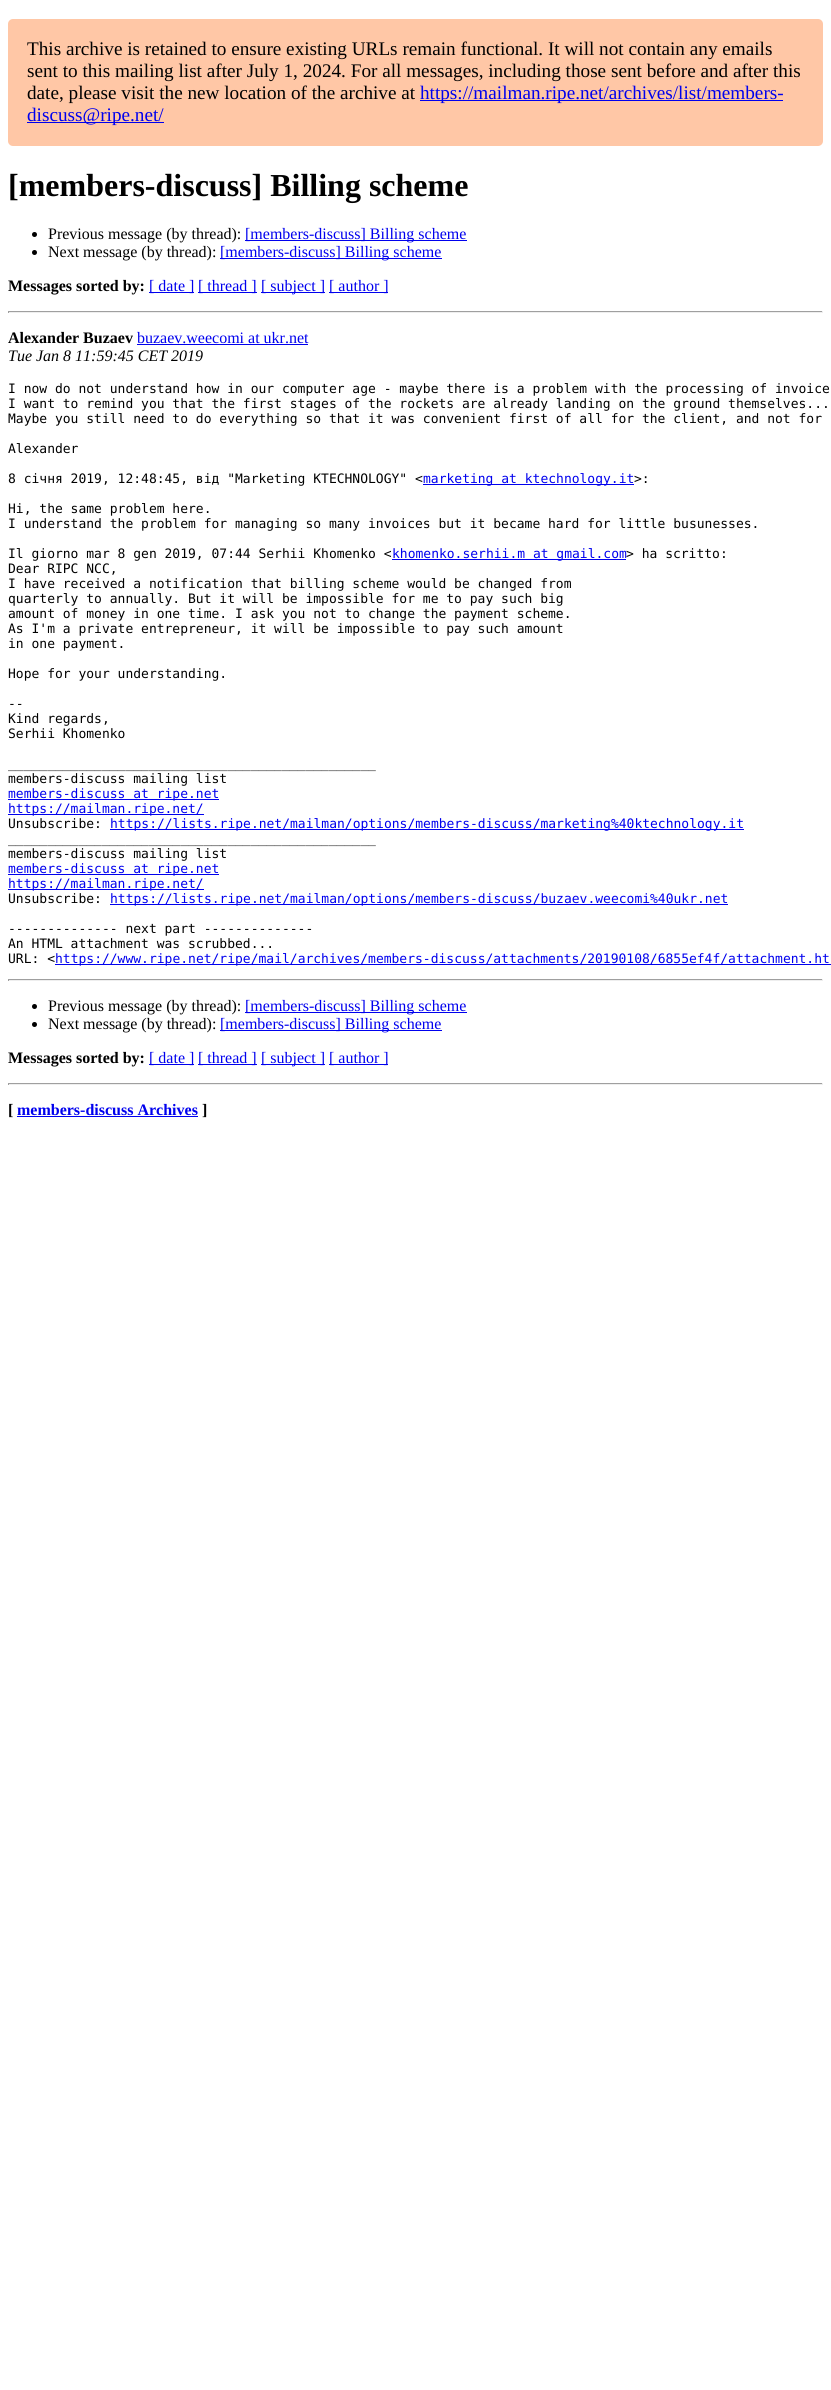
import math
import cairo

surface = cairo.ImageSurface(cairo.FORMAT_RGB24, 831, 2390)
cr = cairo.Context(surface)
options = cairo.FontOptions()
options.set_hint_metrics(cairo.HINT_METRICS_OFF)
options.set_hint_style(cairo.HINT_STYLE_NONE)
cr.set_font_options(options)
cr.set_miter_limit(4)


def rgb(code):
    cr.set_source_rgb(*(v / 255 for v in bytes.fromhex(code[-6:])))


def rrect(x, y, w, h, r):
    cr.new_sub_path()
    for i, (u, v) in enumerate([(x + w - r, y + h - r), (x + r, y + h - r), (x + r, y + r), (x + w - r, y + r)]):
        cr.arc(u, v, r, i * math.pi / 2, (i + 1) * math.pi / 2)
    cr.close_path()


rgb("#ffffff")
cr.paint()
rgb("#ffc7a6")
rrect(8, 19, 815, 127, 5)
cr.fill()
rgb("#0000ee")
cr.rectangle(420, 100, 363, 1)
cr.fill()
cr.rectangle(27, 122, 137, 1)
cr.fill()
rgb("#000000")
cr.arc(34.5, 234.5, 2.5, 0, 2 * math.pi)
cr.fill()
rgb("#0000ee")
cr.rectangle(245, 240, 222, 1)
cr.fill()
rgb("#000000")
cr.arc(34.5, 252.5, 2.5, 0, 2 * math.pi)
cr.fill()
for x, y, w, h, color in [
    (220, 258, 222, 1, "#0000ee"),
    (149, 292, 45, 1, "#0000ee"),
    (198, 292, 59, 1, "#0000ee"),
    (261, 292, 64, 1, "#0000ee"),
    (329, 292, 59, 1, "#0000ee"),
    (8, 311, 815, 1, "#9f9f9f"),
    (822, 311, 1, 2, "#eeeeee"),
    (8, 312, 815, 1, "#eeeeee"),
    (8, 311, 1, 2, "#9f9f9f"),
    (137, 344, 171, 1, "#0000ee"),
    (423, 484, 211, 1, "#0000ee"),
    (392, 559, 234, 1, "#0000ee"),
    (8, 799, 211, 1, "#0000ee"),
    (8, 814, 196, 1, "#0000ee"),
    (110, 829, 634, 1, "#0000ee"),
    (8, 874, 211, 1, "#0000ee"),
    (8, 889, 196, 1, "#0000ee"),
    (110, 904, 618, 1, "#0000ee"),
    (55, 964, 776, 1, "#0000ee"),
    (8, 979, 815, 1, "#9f9f9f"),
    (822, 979, 1, 2, "#eeeeee"),
    (8, 980, 815, 1, "#eeeeee"),
    (8, 979, 1, 2, "#9f9f9f"),
]:
    rgb(color)
    cr.rectangle(x, y, w, h)
    cr.fill()
rgb("#000000")
cr.arc(34.5, 1006.5, 2.5, 0, 2 * math.pi)
cr.fill()
rgb("#0000ee")
cr.rectangle(245, 1012, 222, 1)
cr.fill()
rgb("#000000")
cr.arc(34.5, 1024.5, 2.5, 0, 2 * math.pi)
cr.fill()
for x, y, w, h, color in [
    (220, 1030, 222, 1, "#0000ee"),
    (149, 1064, 45, 1, "#0000ee"),
    (198, 1064, 59, 1, "#0000ee"),
    (261, 1064, 64, 1, "#0000ee"),
    (329, 1064, 59, 1, "#0000ee"),
    (8, 1083, 815, 1, "#9f9f9f"),
    (822, 1083, 1, 2, "#eeeeee"),
    (8, 1084, 815, 1, "#eeeeee"),
    (8, 1083, 1, 2, "#9f9f9f"),
    (17, 1116, 181, 1, "#0000ee"),
]:
    rgb(color)
    cr.rectangle(x, y, w, h)
    cr.fill()
cr.select_font_face("Liberation Serif")
cr.set_font_size(19.2)
rgb("#000000")
for x, y, s in [
    (27, 55, "This archive is retained to ensure existing URLs remain functional. It will not contain any emails"),
    (27, 77, "sent to this mailing list after July 1, 2024. For all messages, including those sent before and after this"),
    (27, 99, "date, please visit the new location of the archive at"),
]:
    cr.move_to(x, y)
    cr.show_text(s)
rgb("#0000ee")
cr.move_to(420, 99)
cr.show_text("https://mailman.ripe.net/archives/list/members-")
cr.move_to(27, 121)
cr.show_text("discuss@ripe.net/")
cr.select_font_face("Liberation Serif", cairo.FONT_SLANT_NORMAL, cairo.FONT_WEIGHT_BOLD)
cr.set_font_size(32)
rgb("#000000")
cr.move_to(8, 196)
cr.show_text("[members-discuss] Billing scheme")
cr.select_font_face("Liberation Serif")
cr.set_font_size(16)
cr.move_to(48, 239)
cr.show_text("Previous message (by thread):")
rgb("#0000ee")
cr.move_to(245, 239)
cr.show_text("[members-discuss] Billing scheme")
rgb("#000000")
cr.move_to(48, 257)
cr.show_text("Next message (by thread):")
rgb("#0000ee")
cr.move_to(220, 257)
cr.show_text("[members-discuss] Billing scheme")
cr.select_font_face("Liberation Serif", cairo.FONT_SLANT_NORMAL, cairo.FONT_WEIGHT_BOLD)
rgb("#000000")
cr.move_to(8, 291)
cr.show_text("Messages sorted by:")
cr.select_font_face("Liberation Serif")
rgb("#0000ee")
for x, y, s in [
    (149, 291, "[ date ]"),
    (198, 291, "[ thread ]"),
    (261, 291, "[ subject ]"),
    (329, 291, "[ author ]"),
]:
    cr.move_to(x, y)
    cr.show_text(s)
cr.select_font_face("Liberation Serif", cairo.FONT_SLANT_NORMAL, cairo.FONT_WEIGHT_BOLD)
rgb("#000000")
cr.move_to(8, 343)
cr.show_text("Alexander Buzaev")
cr.select_font_face("Liberation Serif")
rgb("#0000ee")
cr.move_to(137, 343)
cr.show_text("buzaev.weecomi at ukr.net")
cr.select_font_face("Liberation Serif", cairo.FONT_SLANT_ITALIC)
rgb("#000000")
cr.move_to(8, 361)
cr.show_text("Tue Jan 8 11:59:45 CET 2019")
cr.select_font_face("DejaVu Sans Mono")
cr.set_font_size(13)
for x, y, s in [
    (8, 393, "I now do not understand how in our computer age - maybe there is a problem with the processing of invoice"),
    (8, 408, "I want to remind you that the first stages of the rockets are already landing on the ground themselves..."),
    (8, 423, "Maybe you still need to do everything so that it was convenient first of all for the client, and not for"),
    (8, 453, "Alexander"),
    (8, 483, "8 січня 2019, 12:48:45, від \"Marketing KTECHNOLOGY\" <"),
]:
    cr.move_to(x, y)
    cr.show_text(s)
rgb("#0000ee")
cr.move_to(423, 483)
cr.show_text("marketing at ktechnology.it")
rgb("#000000")
for x, y, s in [
    (634, 483, ">:"),
    (8, 513, "Hi, the same problem here."),
    (8, 528, "I understand the problem for managing so many invoices but it became hard for little busunesses."),
    (8, 558, "Il giorno mar 8 gen 2019, 07:44 Serhii Khomenko <"),
]:
    cr.move_to(x, y)
    cr.show_text(s)
rgb("#0000ee")
cr.move_to(392, 558)
cr.show_text("khomenko.serhii.m at gmail.com")
rgb("#000000")
for x, y, s in [
    (626, 558, "> ha scritto:"),
    (8, 573, "Dear RIPC NCC,"),
    (8, 588, "I have received a notification that billing scheme would be changed from"),
    (8, 603, "quarterly to annually. But it will be impossible for me to pay such big"),
    (8, 618, "amount of money in one time. I ask you not to change the payment scheme."),
    (8, 633, "As I'm a private entrepreneur, it will be impossible to pay such amount"),
    (8, 648, "in one payment."),
    (8, 678, "Hope for your understanding."),
    (8, 708, "--"),
    (8, 723, "Kind regards,"),
    (8, 738, "Serhii Khomenko"),
    (8, 768, "_______________________________________________"),
    (8, 783, "members-discuss mailing list"),
]:
    cr.move_to(x, y)
    cr.show_text(s)
rgb("#0000ee")
cr.move_to(8, 798)
cr.show_text("members-discuss at ripe.net")
cr.move_to(8, 813)
cr.show_text("https://mailman.ripe.net/")
rgb("#000000")
cr.move_to(8, 828)
cr.show_text("Unsubscribe:")
rgb("#0000ee")
cr.move_to(110, 828)
cr.show_text("https://lists.ripe.net/mailman/options/members-discuss/marketing%40ktechnology.it")
rgb("#000000")
cr.move_to(8, 843)
cr.show_text("_______________________________________________")
cr.move_to(8, 858)
cr.show_text("members-discuss mailing list")
rgb("#0000ee")
cr.move_to(8, 873)
cr.show_text("members-discuss at ripe.net")
cr.move_to(8, 888)
cr.show_text("https://mailman.ripe.net/")
rgb("#000000")
cr.move_to(8, 903)
cr.show_text("Unsubscribe:")
rgb("#0000ee")
cr.move_to(110, 903)
cr.show_text("https://lists.ripe.net/mailman/options/members-discuss/buzaev.weecomi%40ukr.net")
rgb("#000000")
for x, y, s in [
    (8, 933, "-------------- next part --------------"),
    (8, 948, "An HTML attachment was scrubbed..."),
    (8, 963, "URL: <"),
]:
    cr.move_to(x, y)
    cr.show_text(s)
rgb("#0000ee")
cr.move_to(55, 963)
cr.show_text("https://www.ripe.net/ripe/mail/archives/members-discuss/attachments/20190108/6855ef4f/attachment.ht")
cr.select_font_face("Liberation Serif")
cr.set_font_size(16)
rgb("#000000")
cr.move_to(48, 1011)
cr.show_text("Previous message (by thread):")
rgb("#0000ee")
cr.move_to(245, 1011)
cr.show_text("[members-discuss] Billing scheme")
rgb("#000000")
cr.move_to(48, 1029)
cr.show_text("Next message (by thread):")
rgb("#0000ee")
cr.move_to(220, 1029)
cr.show_text("[members-discuss] Billing scheme")
cr.select_font_face("Liberation Serif", cairo.FONT_SLANT_NORMAL, cairo.FONT_WEIGHT_BOLD)
rgb("#000000")
cr.move_to(8, 1063)
cr.show_text("Messages sorted by:")
cr.select_font_face("Liberation Serif")
rgb("#0000ee")
for x, y, s in [
    (149, 1063, "[ date ]"),
    (198, 1063, "[ thread ]"),
    (261, 1063, "[ subject ]"),
    (329, 1063, "[ author ]"),
]:
    cr.move_to(x, y)
    cr.show_text(s)
cr.select_font_face("Liberation Serif", cairo.FONT_SLANT_NORMAL, cairo.FONT_WEIGHT_BOLD)
rgb("#000000")
cr.move_to(8, 1115)
cr.show_text("[")
rgb("#0000ee")
cr.move_to(17, 1115)
cr.show_text("members-discuss Archives")
rgb("#000000")
cr.move_to(202, 1115)
cr.show_text("]")
surface.write_to_png("page.png")
